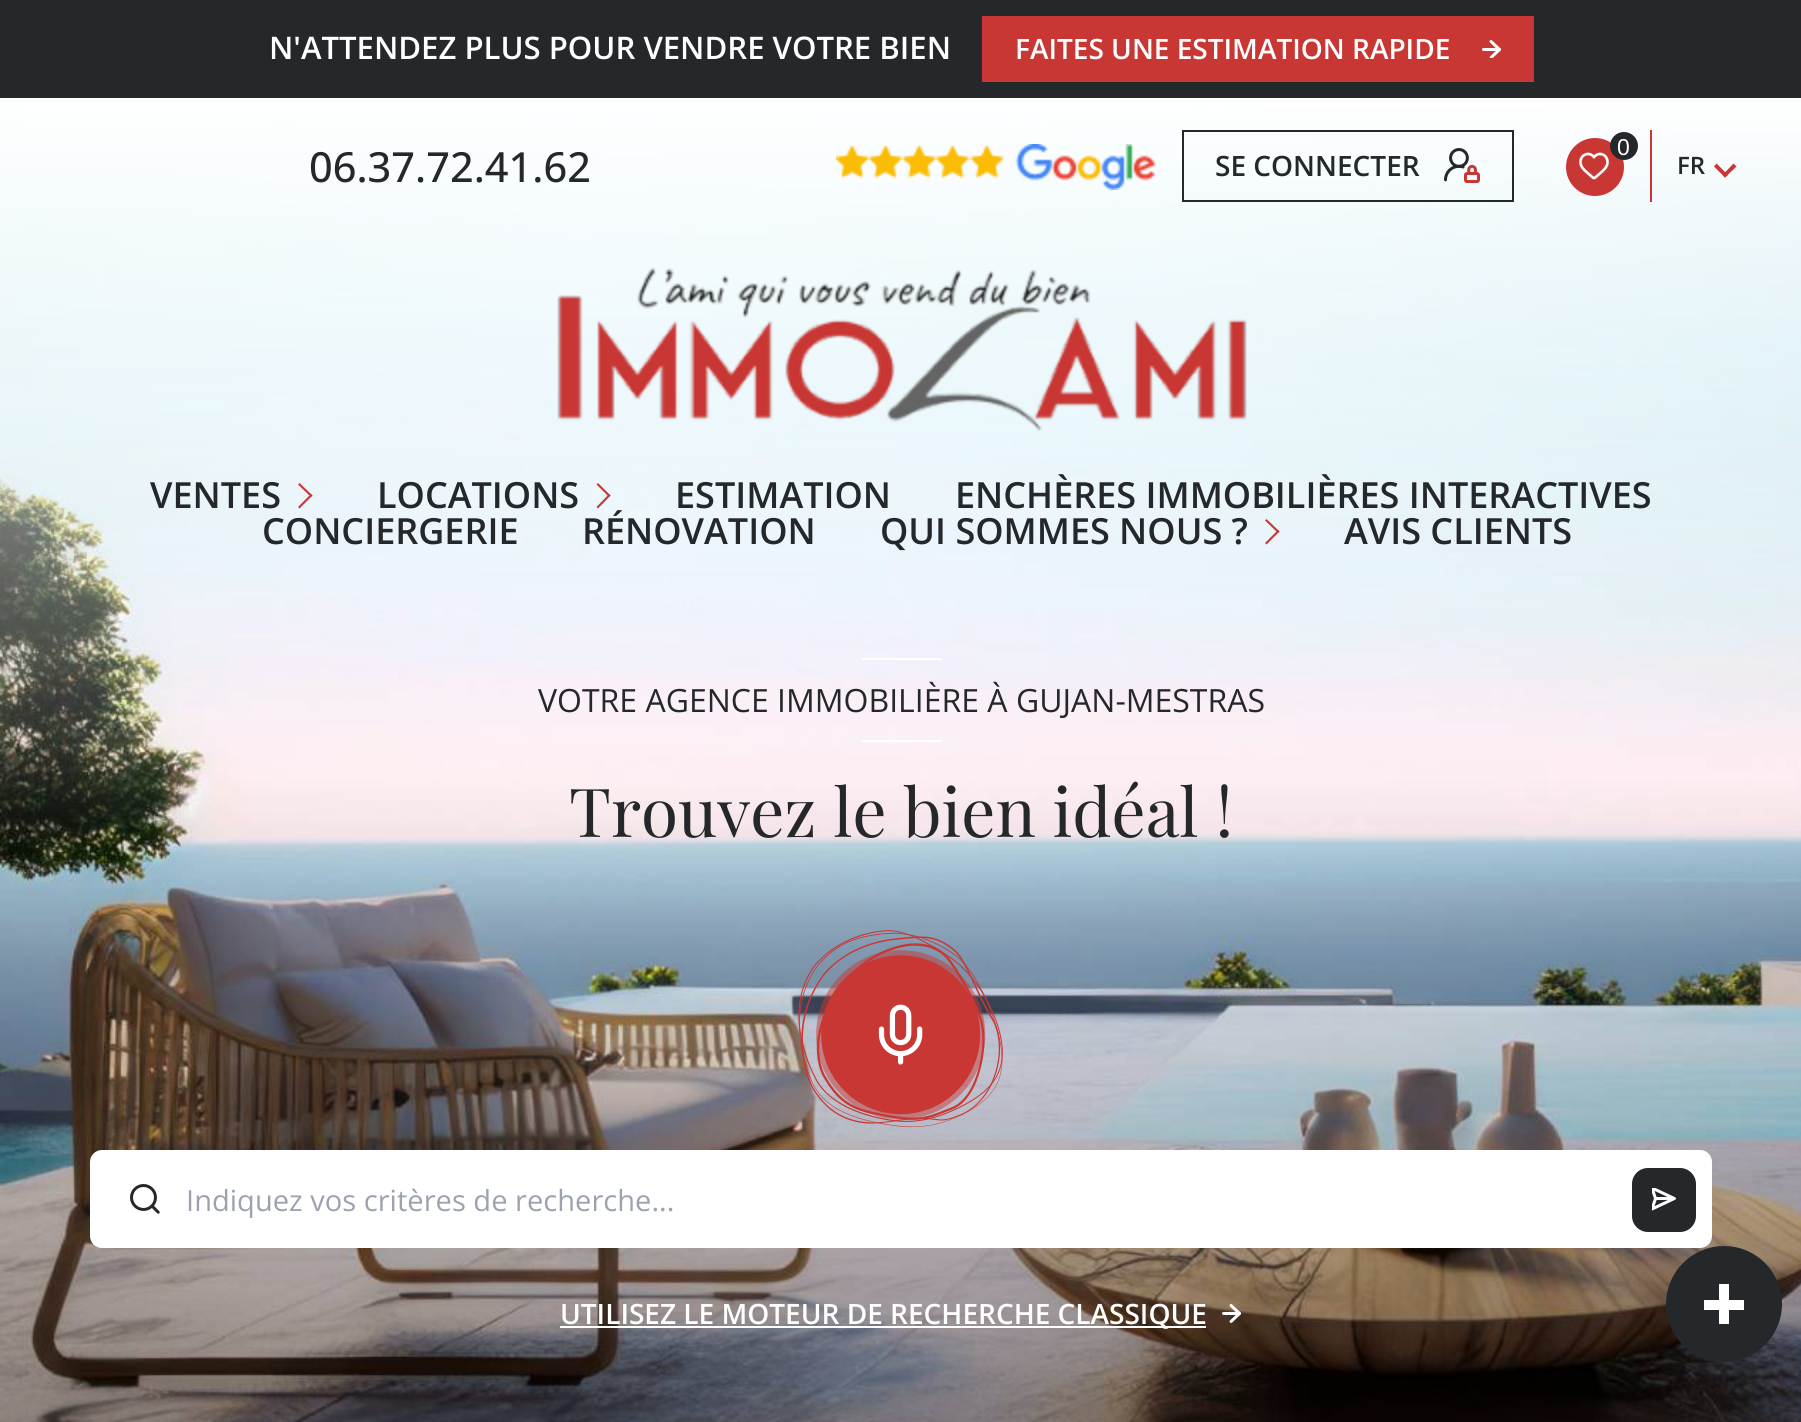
import math
import cairo

surface = cairo.ImageSurface(cairo.FORMAT_RGB24, 1801, 1422)
cr = cairo.Context(surface)
options = cairo.FontOptions()
options.set_hint_metrics(cairo.HINT_METRICS_OFF)
options.set_hint_style(cairo.HINT_STYLE_NONE)
cr.set_font_options(options)
cr.set_miter_limit(4)


def rgb(code):
    cr.set_source_rgb(*(v / 255 for v in bytes.fromhex(code[-6:])))


def rrect(x, y, w, h, r):
    cr.new_sub_path()
    for i, (u, v) in enumerate([(x + w - r, y + h - r), (x + r, y + h - r), (x + r, y + r), (x + w - r, y + r)]):
        cr.arc(u, v, r, i * math.pi / 2, (i + 1) * math.pi / 2)
    cr.close_path()


def image(path, x, y, w, h):
    cr.save()
    cr.set_source_surface(cairo.ImageSurface.create_from_png(path), x, y)
    cr.rectangle(x, y, w, h)
    cr.fill()
    cr.restore()


rgb("#ffffff")
cr.paint()
rgb("#25282b")
cr.rectangle(0, 0, 1801, 98)
cr.fill()
rgb("#c83734")
cr.rectangle(982, 16, 552, 66)
cr.fill()
image("img/1.png", 1482, 40, 19, 18)
image("img/2.png", 0, 98, 1801, 1324)
image("img/3.png", 836, 144, 320, 46)
cr.rectangle(1183, 131, 330, 70)
rgb("#25282b")
cr.stroke()
image("img/4.png", 1444, 148, 36, 35)
rgb("#c83734")
cr.arc(1595, 167, 29, 0, 2 * math.pi)
cr.fill()
image("img/5.png", 1579, 152, 30, 28)
rgb("#25282b")
cr.arc(1624, 146, 14, 0, 2 * math.pi)
cr.fill()
rgb("#c83734")
cr.rectangle(1650, 130, 2, 72)
cr.fill()
cr.new_path()
cr.move_to(1733.5, 163.5)
cr.line_to(1736.5, 166.5)
cr.line_to(1725, 177.5)
cr.line_to(1722.5, 175)
cr.close_path()
cr.fill()
cr.new_path()
cr.move_to(1716.5, 163.5)
cr.line_to(1728, 175)
cr.line_to(1725, 177.5)
cr.line_to(1714, 166.5)
cr.close_path()
cr.fill()
image("img/6.png", 557, 267, 690, 164)
cr.new_path()
cr.move_to(312.5, 495.5)
cr.line_to(299.5, 508.5)
cr.line_to(298, 507)
cr.line_to(311, 494)
cr.close_path()
cr.fill()
cr.new_path()
cr.move_to(312.5, 495.5)
cr.line_to(311, 497)
cr.line_to(298, 484.5)
cr.line_to(299.5, 483)
cr.close_path()
cr.fill()
cr.new_path()
cr.move_to(610.5, 495.5)
cr.line_to(598, 508.5)
cr.line_to(596.5, 507)
cr.line_to(609, 494)
cr.close_path()
cr.fill()
cr.new_path()
cr.move_to(610.5, 495.5)
cr.line_to(609, 497)
cr.line_to(596.5, 484.5)
cr.line_to(598, 483)
cr.close_path()
cr.fill()
cr.new_path()
cr.move_to(1279.5, 531.5)
cr.line_to(1266.5, 544.5)
cr.line_to(1265, 543)
cr.line_to(1278, 530)
cr.close_path()
cr.fill()
cr.new_path()
cr.move_to(1279.5, 531.5)
cr.line_to(1278, 533)
cr.line_to(1265, 520.5)
cr.line_to(1266.5, 519)
cr.close_path()
cr.fill()
rgb("#ffffff")
cr.rectangle(862, 658, 80, 2)
cr.fill()
cr.rectangle(862, 740, 80, 2)
cr.fill()
image("img/7.png", 798, 930, 205, 198)
rrect(90, 1150, 1622, 98, 12)
cr.fill()
image("img/8.png", 130, 1184, 30, 30)
rgb("#25282b")
rrect(1632, 1168, 64, 64, 16)
cr.fill()
image("img/9.png", 1652, 1188, 24, 23)
rgb("#ffffff")
cr.rectangle(560, 1326, 646, 2)
cr.fill()
image("img/10.png", 1222, 1304, 19, 19)
rgb("#25282b")
cr.arc(1724, 1304, 58, 0, 2 * math.pi)
cr.fill()
rgb("#ffffff")
cr.rectangle(1704, 1300, 40, 10)
cr.fill()
cr.rectangle(1719, 1284, 10, 40)
cr.fill()
cr.select_font_face("Open Sans SemiBold")
cr.set_font_size(31.1)
cr.move_to(269, 59)
cr.show_text("N'ATTENDEZ PLUS POUR VENDRE VOTRE BIEN")
cr.set_font_size(28)
cr.move_to(1015, 59)
cr.show_text("FAITES UNE ESTIMATION RAPIDE")
cr.select_font_face("Open Sans Medium")
cr.set_font_size(41.5)
rgb("#25282b")
cr.move_to(309, 182)
cr.show_text("06.37.72.41.62")
cr.select_font_face("Open Sans SemiBold")
cr.set_font_size(28)
cr.move_to(1215, 176)
cr.show_text("SE CONNECTER")
cr.select_font_face("Liberation Sans")
cr.set_font_size(23)
rgb("#ffffff")
cr.move_to(1617, 155)
cr.show_text("0")
cr.select_font_face("Open Sans SemiBold")
cr.set_font_size(24)
rgb("#25282b")
cr.move_to(1677, 174)
cr.show_text("FR")
cr.set_font_size(36)
for x, y, s in [
    (150, 508, "VENTES"),
    (377, 508, "LOCATIONS"),
    (675, 508, "ESTIMATION"),
    (955, 508, "ENCHÈRES IMMOBILIÈRES INTERACTIVES"),
    (262, 544, "CONCIERGERIE"),
    (582, 544, "RÉNOVATION"),
    (880, 544, "QUI SOMMES NOUS ?"),
    (1344, 544, "AVIS CLIENTS"),
]:
    cr.move_to(x, y)
    cr.show_text(s)
cr.select_font_face("Open Sans")
cr.set_font_size(32)
cr.move_to(538, 712)
cr.show_text("VOTRE AGENCE IMMOBILIÈRE À GUJAN-MESTRAS")
cr.select_font_face("Playfair Display")
cr.set_font_size(67.5)
cr.move_to(569, 837)
cr.show_text("Trouvez le bien idéal !")
cr.select_font_face("Open Sans")
cr.set_font_size(29.1)
rgb("#9ca3af")
cr.move_to(186, 1211)
cr.show_text("Indiquez vos critères de recherche...")
cr.select_font_face("Open Sans SemiBold")
cr.set_font_size(28)
rgb("#ffffff")
cr.move_to(560, 1324)
cr.show_text("UTILISEZ LE MOTEUR DE RECHERCHE CLASSIQUE")
surface.write_to_png("page.png")
